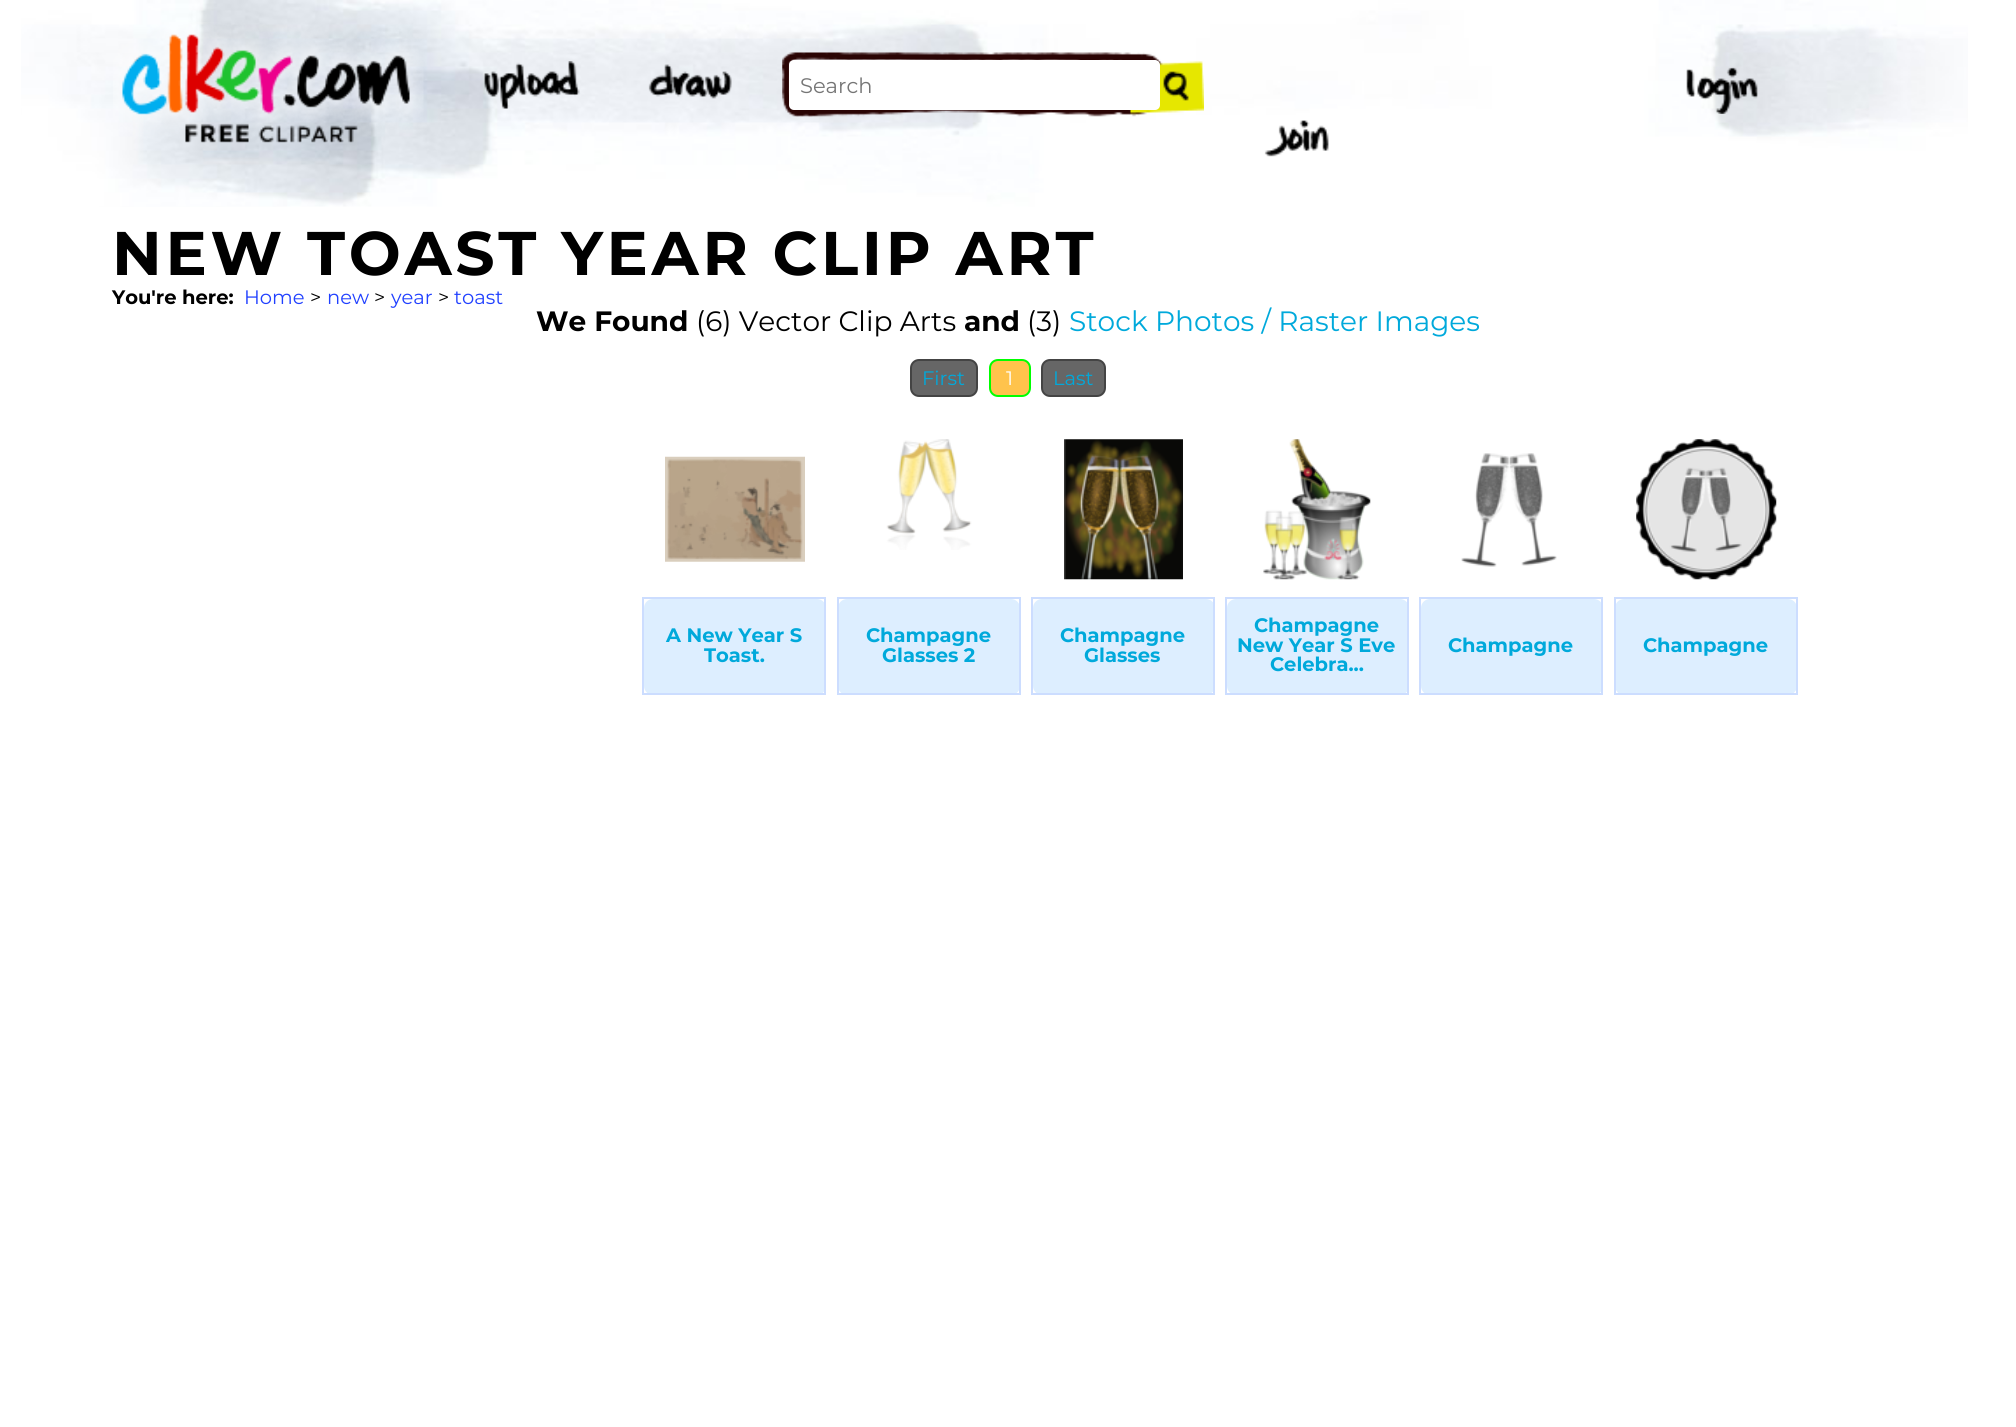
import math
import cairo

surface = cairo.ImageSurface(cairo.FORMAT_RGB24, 2016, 1427)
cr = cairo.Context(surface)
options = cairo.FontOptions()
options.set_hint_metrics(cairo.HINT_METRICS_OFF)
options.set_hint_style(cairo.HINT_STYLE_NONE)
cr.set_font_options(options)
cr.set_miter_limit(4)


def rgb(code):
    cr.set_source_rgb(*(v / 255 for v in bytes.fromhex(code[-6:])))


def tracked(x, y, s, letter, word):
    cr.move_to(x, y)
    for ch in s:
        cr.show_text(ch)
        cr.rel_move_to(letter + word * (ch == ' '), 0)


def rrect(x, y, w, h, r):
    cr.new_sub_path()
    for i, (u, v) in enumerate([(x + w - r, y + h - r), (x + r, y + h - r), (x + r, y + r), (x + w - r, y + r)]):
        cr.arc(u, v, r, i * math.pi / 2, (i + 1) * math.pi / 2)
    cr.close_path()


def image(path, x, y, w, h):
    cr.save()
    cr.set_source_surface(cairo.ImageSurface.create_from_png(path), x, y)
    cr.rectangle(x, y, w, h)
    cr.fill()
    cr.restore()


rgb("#ffffff")
cr.paint()
image("img/1.png", 21, 0, 1947, 207)
image("img/2.png", 113, 22, 311, 121)
image("img/3.png", 484, 61, 96, 48)
image("img/4.png", 648, 64, 84, 35)
image("img/5.png", 782, 52, 422, 65)
rgb("#ffffff")
rrect(789, 60, 371, 50, 5)
cr.fill()
image("img/6.png", 1686, 67, 72, 47)
image("img/7.png", 1264, 120, 65, 37)
rgb("#666666")
rrect(911, 360, 66, 36, 8)
cr.fill_preserve()
rgb("#444444")
cr.stroke()
rgb("#ffc34c")
rrect(990, 360, 40, 36, 8)
cr.fill_preserve()
rgb("#00ff00")
cr.stroke()
rgb("#666666")
rrect(1042, 360, 63, 36, 8)
cr.fill_preserve()
rgb("#444444")
cr.stroke()
image("img/8.png", 665, 456, 140, 106)
rgb("#ddeeff")
rrect(644, 599, 182, 96, 9)
cr.fill()
for x, y, w, h, color in [
    (642, 597, 184, 2, "#ccddff"),
    (824, 597, 2, 98, "#ccddff"),
    (642, 693, 184, 2, "#ccddff"),
    (642, 597, 2, 98, "#ccddff"),
]:
    rgb(color)
    cr.rectangle(x, y, w, h)
    cr.fill()
image("img/9.png", 886, 439, 86, 111)
rgb("#ddeeff")
rrect(838, 599, 182, 96, 9)
cr.fill()
for x, y, w, h, color in [
    (837, 597, 183, 2, "#ccddff"),
    (1019, 597, 2, 98, "#ccddff"),
    (837, 693, 183, 2, "#ccddff"),
    (837, 597, 2, 98, "#ccddff"),
]:
    rgb(color)
    cr.rectangle(x, y, w, h)
    cr.fill()
image("img/10.png", 1064, 439, 119, 141)
rgb("#ddeeff")
rrect(1033, 599, 182, 96, 9)
cr.fill()
for x, y, w, h, color in [
    (1031, 597, 184, 2, "#ccddff"),
    (1213, 597, 2, 98, "#ccddff"),
    (1031, 693, 184, 2, "#ccddff"),
    (1031, 597, 2, 98, "#ccddff"),
]:
    rgb(color)
    cr.rectangle(x, y, w, h)
    cr.fill()
image("img/11.png", 1263, 439, 108, 141)
rgb("#ddeeff")
rrect(1227, 599, 182, 96, 9)
cr.fill()
for x, y, w, h, color in [
    (1225, 597, 184, 2, "#ccddff"),
    (1407, 597, 2, 98, "#ccddff"),
    (1225, 693, 184, 2, "#ccddff"),
    (1225, 597, 2, 98, "#ccddff"),
]:
    rgb(color)
    cr.rectangle(x, y, w, h)
    cr.fill()
image("img/12.png", 1461, 453, 96, 114)
rgb("#ddeeff")
rrect(1421, 599, 182, 96, 9)
cr.fill()
for x, y, w, h, color in [
    (1419, 597, 184, 2, "#ccddff"),
    (1601, 597, 2, 98, "#ccddff"),
    (1419, 693, 184, 2, "#ccddff"),
    (1419, 597, 2, 98, "#ccddff"),
]:
    rgb(color)
    cr.rectangle(x, y, w, h)
    cr.fill()
image("img/13.png", 1636, 439, 141, 141)
rgb("#ddeeff")
rrect(1615, 599, 182, 96, 9)
cr.fill()
for x, y, w, h, color in [
    (1614, 597, 183, 2, "#ccddff"),
    (1796, 597, 2, 98, "#ccddff"),
    (1614, 693, 183, 2, "#ccddff"),
    (1614, 597, 2, 98, "#ccddff"),
]:
    rgb(color)
    cr.rectangle(x, y, w, h)
    cr.fill()
cr.select_font_face("Montserrat")
cr.set_font_size(21)
rgb("#757575")
cr.move_to(800, 93)
cr.show_text("Search")
cr.select_font_face("Montserrat", cairo.FONT_SLANT_NORMAL, cairo.FONT_WEIGHT_BOLD)
cr.set_font_size(61.6)
rgb("#000000")
tracked(112, 275, "NEW TOAST YEAR CLIP ART", 3.7, 0)
cr.set_font_size(19.5)
cr.move_to(112, 304)
cr.show_text("You're here:")
cr.select_font_face("Montserrat")
rgb("#2040ff")
cr.move_to(244, 304)
cr.show_text("Home")
rgb("#000000")
cr.move_to(310, 304)
cr.show_text(">")
rgb("#2040ff")
cr.move_to(327, 304)
cr.show_text("new")
rgb("#000000")
cr.move_to(374, 304)
cr.show_text(">")
rgb("#2040ff")
cr.move_to(391, 304)
cr.show_text("year")
rgb("#000000")
cr.move_to(438, 304)
cr.show_text(">")
rgb("#2040ff")
cr.move_to(454, 304)
cr.show_text("toast")
cr.select_font_face("Montserrat", cairo.FONT_SLANT_NORMAL, cairo.FONT_WEIGHT_BOLD)
cr.set_font_size(28)
rgb("#000000")
cr.move_to(536, 331)
cr.show_text("We Found")
cr.select_font_face("Montserrat")
cr.move_to(696, 331)
cr.show_text("(6) Vector Clip Arts")
cr.select_font_face("Montserrat", cairo.FONT_SLANT_NORMAL, cairo.FONT_WEIGHT_BOLD)
cr.move_to(964, 331)
cr.show_text("and")
cr.select_font_face("Montserrat")
cr.move_to(1027, 331)
cr.show_text("(3)")
rgb("#00a9db")
cr.move_to(1069, 331)
cr.show_text("Stock Photos / Raster Images")
cr.set_font_size(19.5)
cr.move_to(922, 385)
cr.show_text("First")
rgb("#ffffff")
cr.move_to(1006, 385)
cr.show_text("1")
rgb("#00a9db")
cr.move_to(1053, 385)
cr.show_text("Last")
cr.select_font_face("Montserrat", cairo.FONT_SLANT_NORMAL, cairo.FONT_WEIGHT_BOLD)
for x, y, s in [
    (666, 642, "A New Year S"),
    (704, 662, "Toast."),
    (866, 642, "Champagne"),
    (882, 662, "Glasses 2"),
    (1060, 642, "Champagne"),
    (1084, 662, "Glasses"),
    (1254, 632, "Champagne"),
    (1237, 652, "New Year S Eve"),
    (1270, 671, "Celebra..."),
    (1448, 652, "Champagne"),
    (1643, 652, "Champagne"),
]:
    cr.move_to(x, y)
    cr.show_text(s)
surface.write_to_png("page.png")
